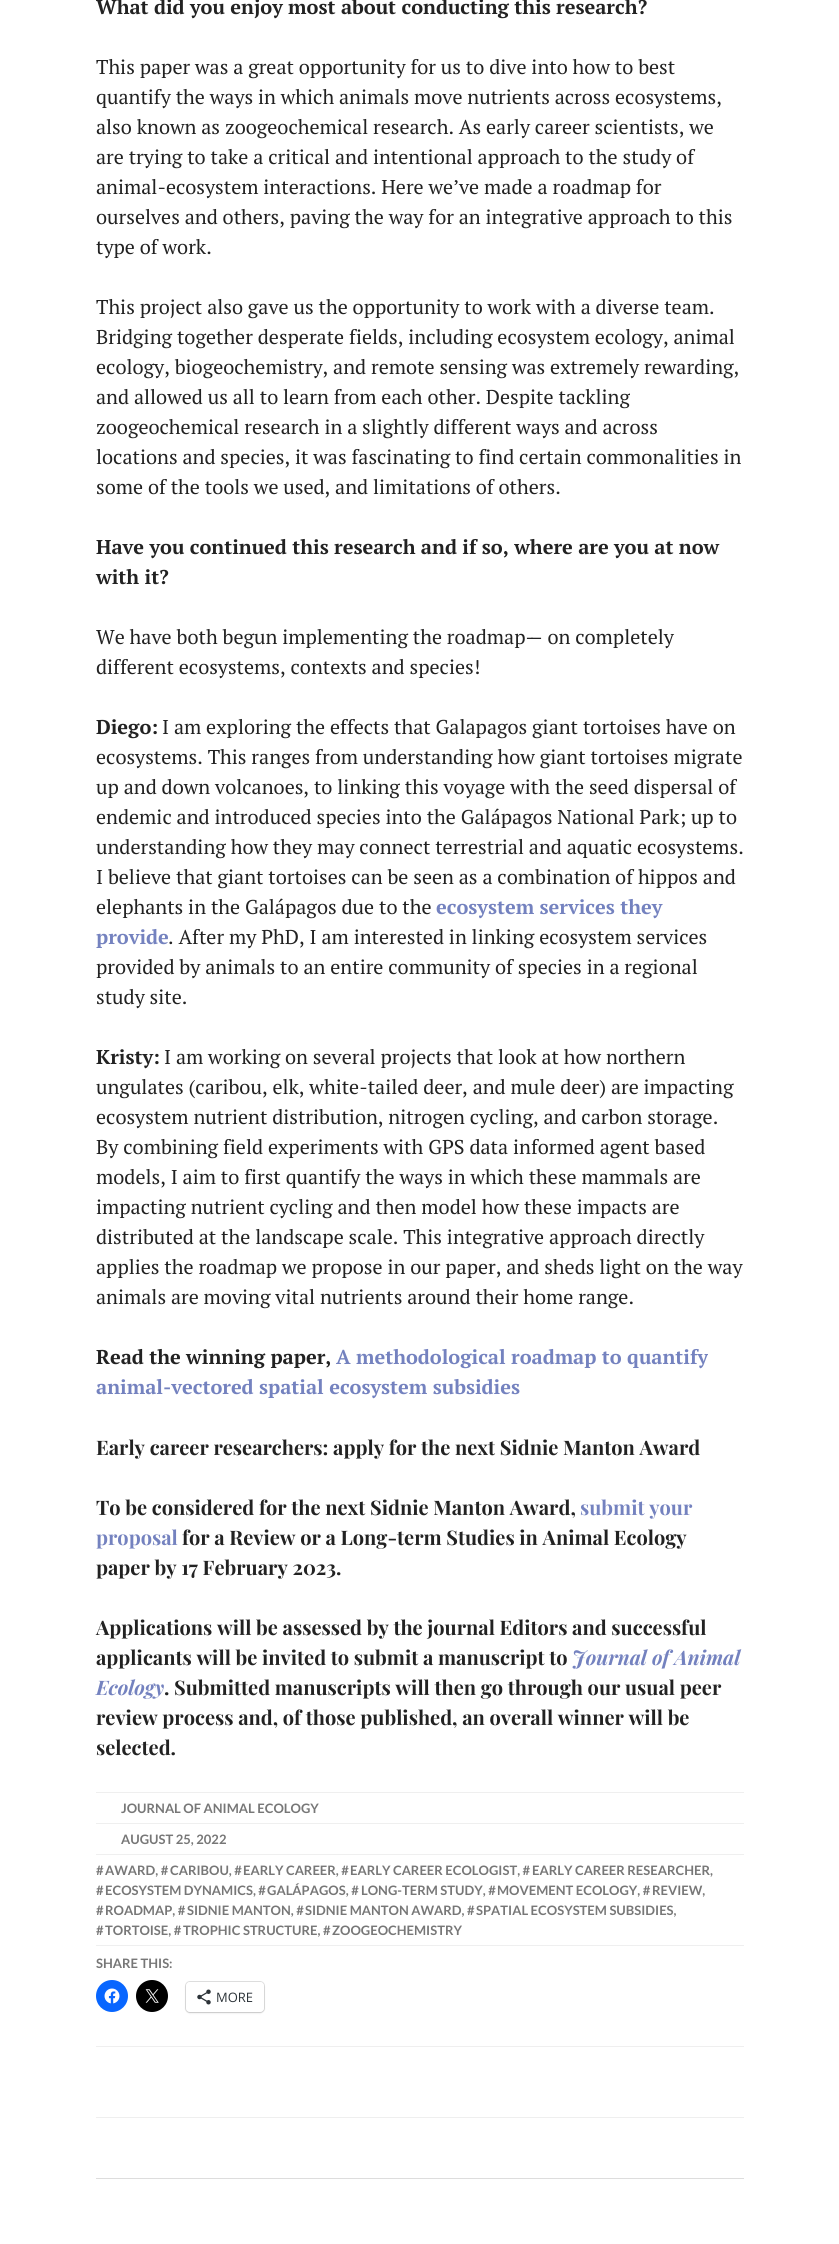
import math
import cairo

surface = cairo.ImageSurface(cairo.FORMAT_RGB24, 839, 2244)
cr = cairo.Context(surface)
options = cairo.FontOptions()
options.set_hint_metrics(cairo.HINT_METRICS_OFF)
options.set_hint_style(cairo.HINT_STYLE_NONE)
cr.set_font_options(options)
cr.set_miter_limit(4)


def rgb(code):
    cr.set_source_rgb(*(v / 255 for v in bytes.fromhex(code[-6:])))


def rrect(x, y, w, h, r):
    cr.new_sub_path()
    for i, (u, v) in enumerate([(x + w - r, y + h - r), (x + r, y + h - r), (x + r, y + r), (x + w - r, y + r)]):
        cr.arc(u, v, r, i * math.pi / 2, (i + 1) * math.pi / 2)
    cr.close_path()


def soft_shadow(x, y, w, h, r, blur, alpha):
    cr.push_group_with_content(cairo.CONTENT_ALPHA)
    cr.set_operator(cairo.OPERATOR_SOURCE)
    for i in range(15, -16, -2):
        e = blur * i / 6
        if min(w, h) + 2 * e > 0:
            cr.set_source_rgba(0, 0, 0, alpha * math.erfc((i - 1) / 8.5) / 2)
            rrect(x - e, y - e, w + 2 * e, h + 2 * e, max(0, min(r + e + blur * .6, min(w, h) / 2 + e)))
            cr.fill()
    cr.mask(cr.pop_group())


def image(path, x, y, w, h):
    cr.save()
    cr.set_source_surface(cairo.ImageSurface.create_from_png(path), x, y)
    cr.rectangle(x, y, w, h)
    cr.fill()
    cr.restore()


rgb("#ffffff")
cr.paint()
for x, y, w, h, color in [
    (96, 1792, 648, 1, "#efefef"),
    (96, 1823, 648, 1, "#efefef"),
    (96, 1854, 648, 1, "#efefef"),
    (96, 1945, 648, 1, "#efefef"),
    (96, 2046, 648, 1, "#efefef"),
]:
    rgb(color)
    cr.rectangle(x, y, w, h)
    cr.fill()
rgb("#0866ff")
cr.arc(112, 1996, 16, 0, 2 * math.pi)
cr.fill()
image("img/1.png", 104, 1988, 16, 16)
rgb("#000000")
cr.arc(152, 1996, 16, 0, 2 * math.pi)
cr.fill()
image("img/2.png", 145, 1989, 14, 14)
rrect(185.5, 1981.5, 79, 31, 4.5)
rgb("#e0e0e0")
cr.set_line_width(1)
cr.stroke()
rgb("#000000")
soft_shadow(186, 1983, 78, 30, 4, 1, 0.12)
rgb("#ffffff")
rrect(186, 1982, 78, 30, 4)
cr.fill()
image("img/3.png", 197, 1989, 14, 16)
rgb("#efefef")
cr.rectangle(96, 2117, 648, 1)
cr.fill()
rgb("#dddddd")
cr.rectangle(96, 2178, 648, 1)
cr.fill()
cr.select_font_face("PT Serif", cairo.FONT_SLANT_NORMAL, cairo.FONT_WEIGHT_BOLD)
cr.set_font_size(20)
rgb("#222222")
cr.move_to(96, 14)
cr.show_text("What did you enjoy most about conducting this research?")
cr.select_font_face("PT Serif")
for x, y, s in [
    (96, 74, "This paper was a great opportunity for us to dive into how to best"),
    (96, 104, "quantify the ways in which animals move nutrients across ecosystems,"),
    (96, 134, "also known as zoogeochemical research. As early career scientists, we"),
    (96, 164, "are trying to take a critical and intentional approach to the study of"),
    (96, 194, "animal-ecosystem interactions. Here we’ve made a roadmap for"),
    (96, 224, "ourselves and others, paving the way for an integrative approach to this"),
    (96, 254, "type of work."),
    (96, 314, "This project also gave us the opportunity to work with a diverse team."),
    (96, 344, "Bridging together desperate fields, including ecosystem ecology, animal"),
    (96, 374, "ecology, biogeochemistry, and remote sensing was extremely rewarding,"),
    (96, 404, "and allowed us all to learn from each other. Despite tackling"),
    (96, 434, "zoogeochemical research in a slightly different ways and across"),
    (96, 464, "locations and species, it was fascinating to find certain commonalities in"),
    (96, 494, "some of the tools we used, and limitations of others."),
]:
    cr.move_to(x, y)
    cr.show_text(s)
cr.select_font_face("PT Serif", cairo.FONT_SLANT_NORMAL, cairo.FONT_WEIGHT_BOLD)
cr.move_to(96, 554)
cr.show_text("Have you continued this research and if so, where are you at now")
cr.move_to(96, 584)
cr.show_text("with it?")
cr.select_font_face("PT Serif")
for x, y, s in [
    (96, 644, "We have both begun implementing the roadmap-"),
    (530, 644, "– on completely"),
    (96, 674, "different ecosystems, contexts and species!"),
]:
    cr.move_to(x, y)
    cr.show_text(s)
cr.select_font_face("PT Serif", cairo.FONT_SLANT_NORMAL, cairo.FONT_WEIGHT_BOLD)
cr.move_to(96, 734)
cr.show_text("Diego:")
cr.select_font_face("PT Serif")
for x, y, s in [
    (162, 734, "I am exploring the effects that Galapagos giant tortoises have on"),
    (96, 764, "ecosystems. This ranges from understanding how giant tortoises migrate"),
    (96, 794, "up and down volcanoes, to linking this voyage with the seed dispersal of"),
    (96, 824, "endemic and introduced species into the Galápagos National Park; up to"),
    (96, 854, "understanding how they may connect terrestrial and aquatic ecosystems."),
    (96, 884, "I believe that giant tortoises can be seen as a combination of hippos and"),
    (96, 914, "elephants in the Galápagos due to the"),
]:
    cr.move_to(x, y)
    cr.show_text(s)
cr.select_font_face("PT Serif", cairo.FONT_SLANT_NORMAL, cairo.FONT_WEIGHT_BOLD)
rgb("#7482bf")
cr.move_to(436, 914)
cr.show_text("ecosystem services they")
cr.move_to(96, 944)
cr.show_text("provide")
cr.select_font_face("PT Serif")
rgb("#222222")
for x, y, s in [
    (168, 944, ". After my PhD, I am interested in linking ecosystem services"),
    (96, 974, "provided by animals to an entire community of species in a regional"),
    (96, 1004, "study site."),
]:
    cr.move_to(x, y)
    cr.show_text(s)
cr.select_font_face("PT Serif", cairo.FONT_SLANT_NORMAL, cairo.FONT_WEIGHT_BOLD)
cr.move_to(96, 1064)
cr.show_text("Kristy:")
cr.select_font_face("PT Serif")
for x, y, s in [
    (164, 1064, "I am working on several projects that look at how northern"),
    (96, 1094, "ungulates (caribou, elk, white-tailed deer, and mule deer) are impacting"),
    (96, 1124, "ecosystem nutrient distribution, nitrogen cycling, and carbon storage."),
    (96, 1154, "By combining field experiments with GPS data informed agent based"),
    (96, 1184, "models, I aim to first quantify the ways in which these mammals are"),
    (96, 1214, "impacting nutrient cycling and then model how these impacts are"),
    (96, 1244, "distributed at the landscape scale. This integrative approach directly"),
    (96, 1274, "applies the roadmap we propose in our paper, and sheds light on the way"),
    (96, 1304, "animals are moving vital nutrients around their home range."),
]:
    cr.move_to(x, y)
    cr.show_text(s)
cr.select_font_face("PT Serif", cairo.FONT_SLANT_NORMAL, cairo.FONT_WEIGHT_BOLD)
cr.move_to(96, 1364)
cr.show_text("Read the winning paper,")
rgb("#7482bf")
cr.move_to(336, 1364)
cr.show_text("A methodological roadmap to quantify")
cr.move_to(96, 1394)
cr.show_text("animal-vectored spatial ecosystem subsidies")
cr.select_font_face("Playfair Display", cairo.FONT_SLANT_NORMAL, cairo.FONT_WEIGHT_BOLD)
rgb("#222222")
cr.move_to(96, 1455)
cr.show_text("Early career researchers: apply for the next Sidnie Manton Award")
cr.move_to(96, 1515)
cr.show_text("To be considered for the next Sidnie Manton Award,")
rgb("#7482bf")
cr.move_to(580, 1515)
cr.show_text("submit your")
cr.move_to(96, 1545)
cr.show_text("proposal")
rgb("#222222")
for x, y, s in [
    (182, 1545, "for a Review or a Long-term Studies in Animal Ecology"),
    (96, 1575, "paper by 17 February 2023."),
    (96, 1635, "Applications will be assessed by the journal Editors and successful"),
    (96, 1665, "applicants will be invited to submit a manuscript to"),
]:
    cr.move_to(x, y)
    cr.show_text(s)
cr.select_font_face("Playfair Display", cairo.FONT_SLANT_ITALIC, cairo.FONT_WEIGHT_BOLD)
rgb("#7482bf")
cr.move_to(572, 1665)
cr.show_text("Journal of Animal")
cr.move_to(96, 1695)
cr.show_text("Ecology")
cr.select_font_face("Playfair Display", cairo.FONT_SLANT_NORMAL, cairo.FONT_WEIGHT_BOLD)
rgb("#222222")
for x, y, s in [
    (164, 1695, ". Submitted manuscripts will then go through our usual peer"),
    (96, 1725, "review process and, of those published, an overall winner will be"),
    (96, 1755, "selected."),
]:
    cr.move_to(x, y)
    cr.show_text(s)
cr.select_font_face("Lato", cairo.FONT_SLANT_NORMAL, cairo.FONT_WEIGHT_BOLD)
cr.set_font_size(13)
rgb("#777777")
for x, y, s in [
    (121, 1813, "JOURNAL OF ANIMAL ECOLOGY"),
    (121, 1844, "AUGUST 25, 2022"),
    (96, 1875, "#"),
    (105, 1875, "AWARD, #"),
    (170, 1875, "CARIBOU, #"),
    (243, 1875, "EARLY CAREER, #"),
    (350, 1875, "EARLY CAREER ECOLOGIST, #"),
    (532, 1875, "EARLY CAREER RESEARCHER,"),
    (96, 1895, "#"),
    (105, 1895, "ECOSYSTEM DYNAMICS, #"),
    (267, 1895, "GALÁPAGOS, #"),
    (361, 1895, "LONG-TERM STUDY, #"),
    (497, 1895, "MOVEMENT ECOLOGY, #"),
    (652, 1895, "REVIEW,"),
    (96, 1915, "#"),
    (105, 1915, "ROADMAP, #"),
    (187, 1915, "SIDNIE MANTON, #"),
    (305, 1915, "SIDNIE MANTON AWARD, #"),
    (476, 1915, "SPATIAL ECOSYSTEM SUBSIDIES,"),
    (96, 1935, "#"),
    (105, 1935, "TORTOISE, #"),
    (183, 1935, "TROPHIC STRUCTURE, #"),
    (332, 1935, "ZOOGEOCHEMISTRY"),
    (96, 1968, "SHARE THIS:"),
]:
    cr.move_to(x, y)
    cr.show_text(s)
cr.select_font_face("Open Sans")
rgb("#2c3338")
cr.move_to(216, 2002)
cr.show_text("MORE")
surface.write_to_png("page.png")
